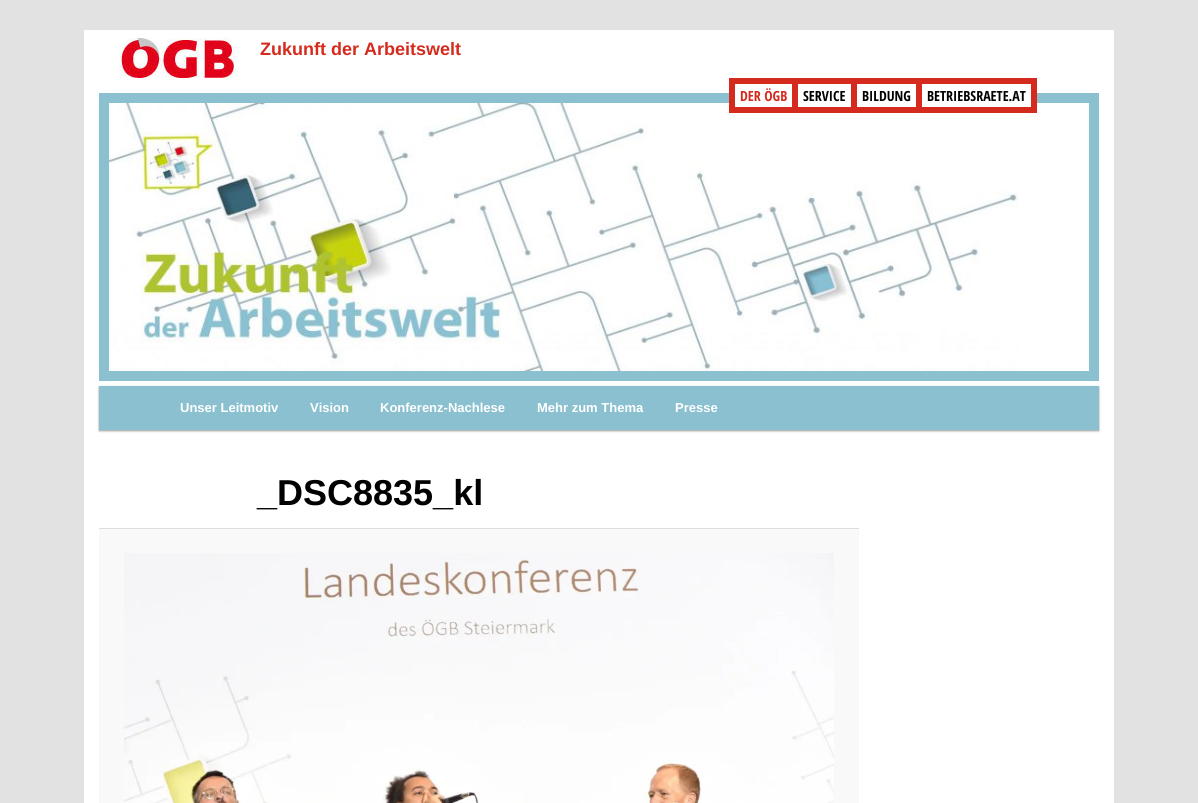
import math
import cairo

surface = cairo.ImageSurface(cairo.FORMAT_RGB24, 1198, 803)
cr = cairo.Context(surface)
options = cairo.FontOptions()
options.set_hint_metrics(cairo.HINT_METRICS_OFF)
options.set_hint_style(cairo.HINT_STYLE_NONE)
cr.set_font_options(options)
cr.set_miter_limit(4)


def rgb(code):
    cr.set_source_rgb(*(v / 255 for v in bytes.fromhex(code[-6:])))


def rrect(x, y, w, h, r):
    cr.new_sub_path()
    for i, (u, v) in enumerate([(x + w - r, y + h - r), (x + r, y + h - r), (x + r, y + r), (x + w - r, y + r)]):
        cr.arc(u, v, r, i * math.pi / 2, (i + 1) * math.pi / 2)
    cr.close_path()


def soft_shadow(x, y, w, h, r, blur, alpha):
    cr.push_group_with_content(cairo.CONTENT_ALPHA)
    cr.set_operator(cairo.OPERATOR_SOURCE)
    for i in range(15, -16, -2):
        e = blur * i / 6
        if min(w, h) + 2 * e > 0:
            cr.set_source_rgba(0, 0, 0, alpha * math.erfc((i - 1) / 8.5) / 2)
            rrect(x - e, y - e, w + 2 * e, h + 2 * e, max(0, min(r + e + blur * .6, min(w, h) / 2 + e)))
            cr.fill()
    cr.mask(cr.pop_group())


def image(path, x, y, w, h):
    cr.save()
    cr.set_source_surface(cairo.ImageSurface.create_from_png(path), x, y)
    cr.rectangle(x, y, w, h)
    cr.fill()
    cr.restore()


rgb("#e2e2e2")
cr.paint()
rgb("#ffffff")
cr.rectangle(84, 30, 1030, 773)
cr.fill()
image("img/1.png", 119, 38, 120, 42)
cr.rectangle(104, 98, 990, 278)
rgb("#8ac0cf")
cr.set_line_width(10)
cr.stroke()
rgb("#ffffff")
cr.rectangle(735, 93, 57, 10)
cr.fill()
rgb("#d52b1e")
cr.rectangle(729, 78, 308, 6)
cr.fill()
image("img/2.png", 109, 103, 910, 268)
for x, y, w, h, color in [
    (792, 78, 3, 35, "#d52b1e"),
    (729, 107, 66, 6, "#d52b1e"),
    (729, 78, 6, 35, "#d52b1e"),
    (798, 93, 53, 10, "#ffffff"),
    (851, 78, 3, 35, "#d52b1e"),
    (795, 107, 59, 6, "#d52b1e"),
    (795, 78, 3, 35, "#d52b1e"),
    (857, 93, 59, 10, "#ffffff"),
    (916, 78, 3, 35, "#d52b1e"),
    (854, 107, 65, 6, "#d52b1e"),
    (854, 78, 3, 35, "#d52b1e"),
    (922, 93, 109, 10, "#ffffff"),
    (1031, 78, 6, 35, "#d52b1e"),
    (919, 107, 118, 6, "#d52b1e"),
    (919, 78, 3, 35, "#d52b1e"),
]:
    rgb(color)
    cr.rectangle(x, y, w, h)
    cr.fill()
rgb("#000000")
soft_shadow(99, 387, 1000, 44, 0, 1, 0.4)
for x, y, w, h, color in [
    (99, 386, 1000, 44, "#8ac0cf"),
    (99, 529, 760, 274, "#f9f9f9"),
    (99, 528, 760, 1, "#dddddd"),
]:
    rgb(color)
    cr.rectangle(x, y, w, h)
    cr.fill()
image("img/3.png", 124, 553, 710, 250)
cr.select_font_face("Liberation Sans", cairo.FONT_SLANT_NORMAL, cairo.FONT_WEIGHT_BOLD)
cr.set_font_size(18)
rgb("#d52b1e")
cr.move_to(260, 55)
cr.show_text("Zukunft der Arbeitswelt")
cr.select_font_face("Open Sans Condensed", cairo.FONT_SLANT_NORMAL, cairo.FONT_WEIGHT_BOLD)
cr.set_font_size(14)
cr.move_to(740, 101)
cr.show_text("DER ÖGB")
rgb("#000000")
for x, y, s in [
    (803, 101, "SERVICE"),
    (862, 101, "BILDUNG"),
    (927, 101, "BETRIEBSRAETE.AT"),
]:
    cr.move_to(x, y)
    cr.show_text(s)
cr.select_font_face("Liberation Sans", cairo.FONT_SLANT_NORMAL, cairo.FONT_WEIGHT_BOLD)
cr.set_font_size(13)
rgb("#ffffff")
for x, y, s in [
    (180, 412, "Unser Leitmotiv"),
    (310, 412, "Vision"),
    (380, 412, "Konferenz-Nachlese"),
    (537, 412, "Mehr zum Thema"),
    (675, 412, "Presse"),
]:
    cr.move_to(x, y)
    cr.show_text(s)
cr.set_font_size(36)
rgb("#000000")
cr.move_to(257, 505)
cr.show_text("_DSC8835_kl")
surface.write_to_png("page.png")
